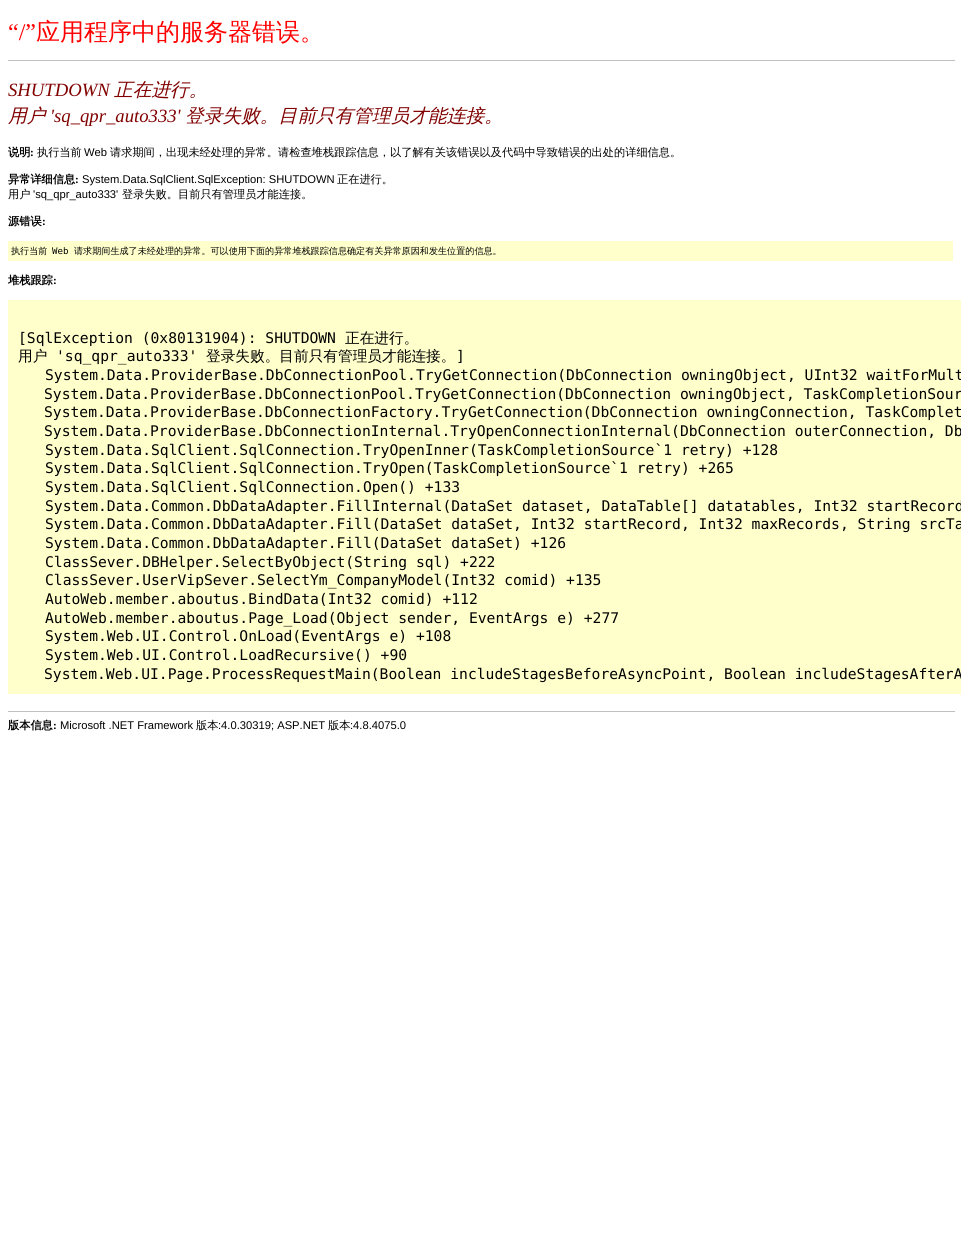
import math
import cairo

surface = cairo.ImageSurface(cairo.FORMAT_RGB24, 961, 1239)
cr = cairo.Context(surface)
options = cairo.FontOptions()
options.set_hint_metrics(cairo.HINT_METRICS_OFF)
options.set_hint_style(cairo.HINT_STYLE_NONE)
cr.set_font_options(options)
cr.set_miter_limit(4)


def rgb(code):
    cr.set_source_rgb(*(v / 255 for v in bytes.fromhex(code[-6:])))


rgb("#ffffff")
cr.paint()
for x, y, w, h, color in [
    (8, 60, 947, 1, "#c0c0c0"),
    (8, 241, 945, 20, "#ffffcc"),
    (8, 300, 953, 394, "#ffffcc"),
    (8, 711, 947, 1, "#c0c0c0"),
]:
    rgb(color)
    cr.rectangle(x, y, w, h)
    cr.fill()
cr.select_font_face("Liberation Serif")
cr.set_font_size(24)
rgb("#ff0000")
cr.move_to(8, 40)
cr.show_text("“/”")
cr.select_font_face("WenQuanYi Zen Hei Medium")
cr.move_to(36, 40)
cr.show_text("应用程序中的服务器错误。")
cr.select_font_face("Liberation Serif", cairo.FONT_SLANT_ITALIC)
cr.set_font_size(18.7)
rgb("#800000")
cr.move_to(8, 96)
cr.show_text("SHUTDOWN")
cr.select_font_face("WenQuanYi Zen Hei Medium", cairo.FONT_SLANT_ITALIC)
cr.move_to(114, 96)
cr.show_text("正在进行。")
cr.move_to(8, 122)
cr.show_text("用户")
cr.select_font_face("Liberation Serif", cairo.FONT_SLANT_ITALIC)
cr.move_to(50, 122)
cr.show_text("'sq_qpr_auto333'")
cr.select_font_face("WenQuanYi Zen Hei Medium", cairo.FONT_SLANT_ITALIC)
cr.move_to(185, 122)
cr.show_text("登录失败。目前只有管理员才能连接。")
cr.select_font_face("WenQuanYi Zen Hei", cairo.FONT_SLANT_NORMAL, cairo.FONT_WEIGHT_BOLD)
cr.set_font_size(11.2)
rgb("#000000")
cr.move_to(8, 156)
cr.show_text("说明")
cr.select_font_face("Liberation Serif", cairo.FONT_SLANT_NORMAL, cairo.FONT_WEIGHT_BOLD)
cr.move_to(30, 156)
cr.show_text(":")
cr.select_font_face("WenQuanYi Zen Hei Medium")
cr.move_to(37, 156)
cr.show_text("执行当前")
cr.select_font_face("Liberation Sans")
cr.move_to(84, 156)
cr.show_text("Web")
cr.select_font_face("WenQuanYi Zen Hei Medium")
cr.move_to(110, 156)
cr.show_text("请求期间，出现未经处理的异常。请检查堆栈跟踪信息，以了解有关该错误以及代码中导致错误的出处的详细信息。")
cr.select_font_face("WenQuanYi Zen Hei", cairo.FONT_SLANT_NORMAL, cairo.FONT_WEIGHT_BOLD)
cr.move_to(8, 183)
cr.show_text("异常详细信息")
cr.select_font_face("Liberation Serif", cairo.FONT_SLANT_NORMAL, cairo.FONT_WEIGHT_BOLD)
cr.move_to(75, 183)
cr.show_text(":")
cr.select_font_face("Liberation Sans")
cr.move_to(82, 183)
cr.show_text("System.Data.SqlClient.SqlException: SHUTDOWN")
cr.select_font_face("WenQuanYi Zen Hei Medium")
cr.move_to(337, 183)
cr.show_text("正在进行。")
cr.move_to(8, 198)
cr.show_text("用户")
cr.select_font_face("Liberation Sans")
cr.move_to(33, 198)
cr.show_text("'sq_qpr_auto333'")
cr.select_font_face("WenQuanYi Zen Hei Medium")
cr.move_to(122, 198)
cr.show_text("登录失败。目前只有管理员才能连接。")
cr.select_font_face("WenQuanYi Zen Hei", cairo.FONT_SLANT_NORMAL, cairo.FONT_WEIGHT_BOLD)
cr.move_to(8, 225)
cr.show_text("源错误")
cr.select_font_face("Liberation Serif", cairo.FONT_SLANT_NORMAL, cairo.FONT_WEIGHT_BOLD)
cr.move_to(42, 225)
cr.show_text(":")
cr.select_font_face("WenQuanYi Zen Hei Medium")
cr.set_font_size(9.1)
cr.move_to(11, 254)
cr.show_text("执行当前")
cr.select_font_face("DejaVu Sans Mono")
cr.move_to(52, 254)
cr.show_text("Web")
cr.select_font_face("WenQuanYi Zen Hei Medium")
cr.move_to(74, 254)
cr.show_text("请求期间生成了未经处理的异常。可以使用下面的异常堆栈跟踪信息确定有关异常原因和发生位置的信息。")
cr.select_font_face("WenQuanYi Zen Hei", cairo.FONT_SLANT_NORMAL, cairo.FONT_WEIGHT_BOLD)
cr.set_font_size(11.2)
cr.move_to(8, 284)
cr.show_text("堆栈跟踪")
cr.select_font_face("Liberation Serif", cairo.FONT_SLANT_NORMAL, cairo.FONT_WEIGHT_BOLD)
cr.move_to(53, 284)
cr.show_text(":")
cr.select_font_face("DejaVu Sans Mono")
cr.set_font_size(14.67)
cr.move_to(18, 343)
cr.show_text("[SqlException (0x80131904): SHUTDOWN")
cr.select_font_face("WenQuanYi Zen Hei Medium")
cr.move_to(345, 343)
cr.show_text("正在进行。")
cr.move_to(18, 361)
cr.show_text("用户")
cr.select_font_face("DejaVu Sans Mono")
cr.move_to(56, 361)
cr.show_text("'sq_qpr_auto333'")
cr.select_font_face("WenQuanYi Zen Hei Medium")
cr.move_to(206, 361)
cr.show_text("登录失败。目前只有管理员才能连接。")
cr.select_font_face("DejaVu Sans Mono")
for x, y, s in [
    (456, 361, "]"),
    (45, 380, "System.Data.ProviderBase.DbConnectionPool.TryGetConnection(DbConnection owningObject, UInt32 waitForMult"),
    (44, 399, "System.Data.ProviderBase.DbConnectionPool.TryGetConnection(DbConnection owningObject, TaskCompletionSour"),
    (44, 417, "System.Data.ProviderBase.DbConnectionFactory.TryGetConnection(DbConnection owningConnection, TaskComplet"),
    (44, 436, "System.Data.ProviderBase.DbConnectionInternal.TryOpenConnectionInternal(DbConnection outerConnection, Db"),
    (45, 455, "System.Data.SqlClient.SqlConnection.TryOpenInner(TaskCompletionSource`1 retry) +128"),
    (45, 473, "System.Data.SqlClient.SqlConnection.TryOpen(TaskCompletionSource`1 retry) +265"),
    (45, 492, "System.Data.SqlClient.SqlConnection.Open() +133"),
    (45, 511, "System.Data.Common.DbDataAdapter.FillInternal(DataSet dataset, DataTable[] datatables, Int32 startRecord"),
    (45, 529, "System.Data.Common.DbDataAdapter.Fill(DataSet dataSet, Int32 startRecord, Int32 maxRecords, String srcTa"),
    (45, 548, "System.Data.Common.DbDataAdapter.Fill(DataSet dataSet) +126"),
    (45, 567, "ClassSever.DBHelper.SelectByObject(String sql) +222"),
    (45, 585, "ClassSever.UserVipSever.SelectYm_CompanyModel(Int32 comid) +135"),
    (45, 604, "AutoWeb.member.aboutus.BindData(Int32 comid) +112"),
    (45, 623, "AutoWeb.member.aboutus.Page_Load(Object sender, EventArgs e) +277"),
    (45, 641, "System.Web.UI.Control.OnLoad(EventArgs e) +108"),
    (45, 660, "System.Web.UI.Control.LoadRecursive() +90"),
    (44, 679, "System.Web.UI.Page.ProcessRequestMain(Boolean includeStagesBeforeAsyncPoint, Boolean includeStagesAfterA"),
]:
    cr.move_to(x, y)
    cr.show_text(s)
cr.select_font_face("WenQuanYi Zen Hei", cairo.FONT_SLANT_NORMAL, cairo.FONT_WEIGHT_BOLD)
cr.set_font_size(11.2)
cr.move_to(8, 729)
cr.show_text("版本信息")
cr.select_font_face("Liberation Serif", cairo.FONT_SLANT_NORMAL, cairo.FONT_WEIGHT_BOLD)
cr.move_to(53, 729)
cr.show_text(":")
cr.select_font_face("Liberation Sans")
cr.move_to(60, 729)
cr.show_text("Microsoft .NET Framework")
cr.select_font_face("WenQuanYi Zen Hei Medium")
cr.move_to(196, 729)
cr.show_text("版本")
cr.select_font_face("Liberation Sans")
cr.move_to(218, 729)
cr.show_text(":4.0.30319; ASP.NET")
cr.select_font_face("WenQuanYi Zen Hei Medium")
cr.move_to(328, 729)
cr.show_text("版本")
cr.select_font_face("Liberation Sans")
cr.move_to(350, 729)
cr.show_text(":4.8.4075.0")
surface.write_to_png("page.png")
